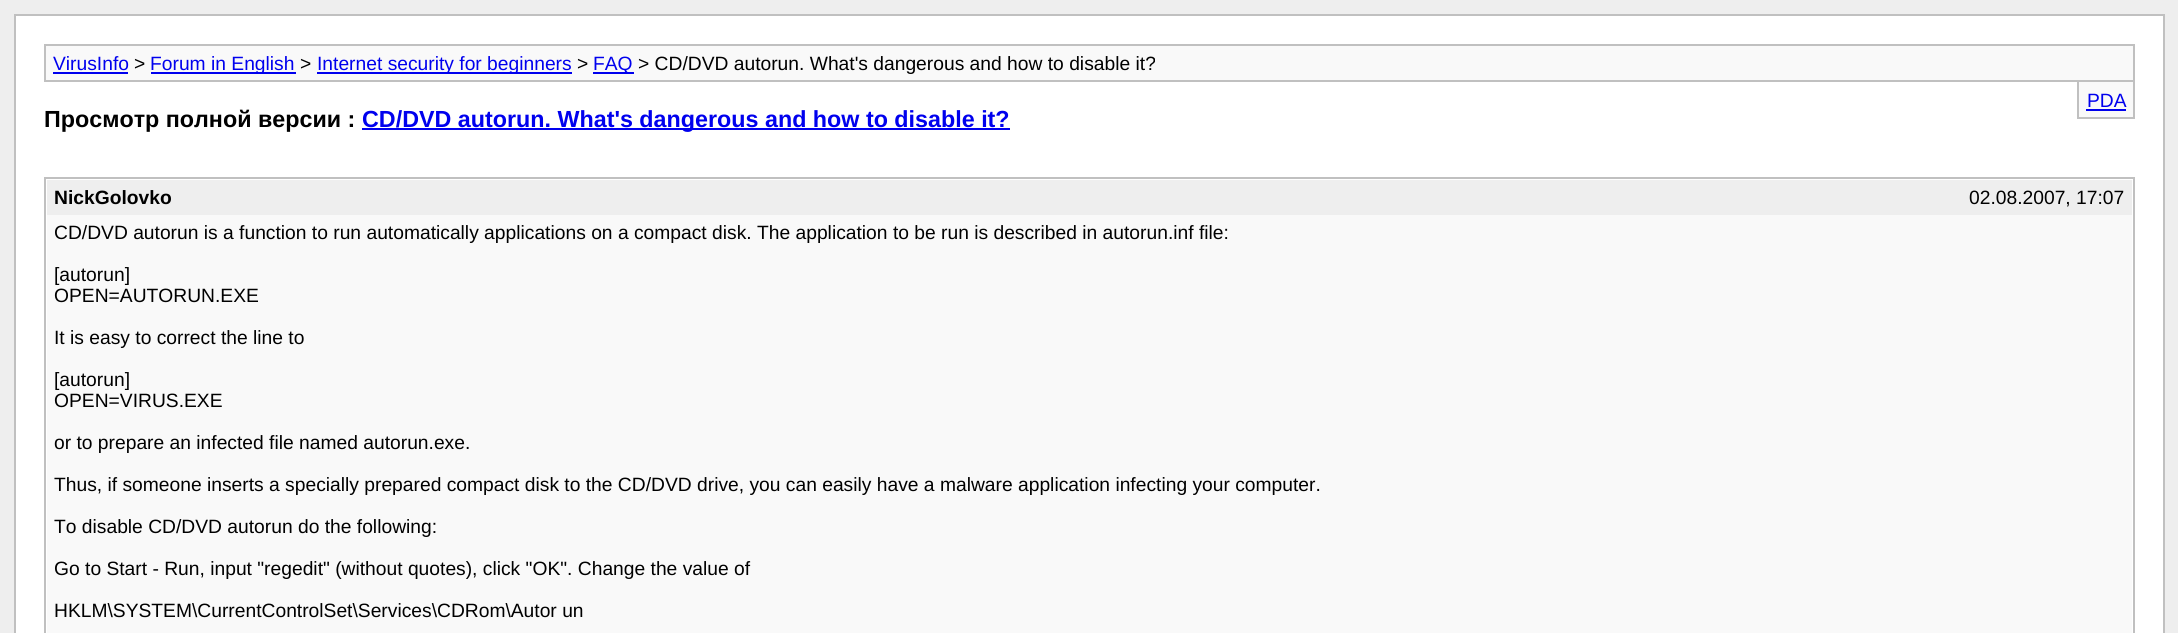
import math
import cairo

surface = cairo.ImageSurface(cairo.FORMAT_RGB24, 2178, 633)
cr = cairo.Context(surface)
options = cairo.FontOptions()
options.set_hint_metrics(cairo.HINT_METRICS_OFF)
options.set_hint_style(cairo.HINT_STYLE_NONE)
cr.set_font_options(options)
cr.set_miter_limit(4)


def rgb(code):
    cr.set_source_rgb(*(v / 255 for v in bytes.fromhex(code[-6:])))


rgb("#eeeeee")
cr.paint()
rgb("#ffffff")
cr.rectangle(15, 15, 2149, 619)
cr.fill_preserve()
rgb("#c0c0c0")
cr.stroke()
rgb("#f9f9f9")
cr.rectangle(45, 45, 2089, 36)
cr.fill_preserve()
rgb("#c0c0c0")
cr.stroke()
for x, y, w, h, color in [
    (53, 72, 75, 2, "#0000ee"),
    (151, 72, 145, 2, "#0000ee"),
    (317, 72, 255, 2, "#0000ee"),
    (593, 72, 41, 2, "#0000ee"),
    (2079, 82, 54, 35, "#f9f9f9"),
    (2133, 82, 2, 37, "#c0c0c0"),
    (2077, 117, 58, 2, "#c0c0c0"),
    (2077, 82, 2, 37, "#c0c0c0"),
    (2086, 109, 40, 2, "#0000ee"),
    (362, 128, 648, 2, "#0000ee"),
]:
    rgb(color)
    cr.rectangle(x, y, w, h)
    cr.fill()
cr.rectangle(45, 178, 2089, 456)
rgb("#c0c0c0")
cr.stroke()
rgb("#eeeeee")
cr.rectangle(47, 180, 2085, 35)
cr.fill()
rgb("#f9f9f9")
cr.rectangle(47, 215, 2085, 418)
cr.fill()
cr.select_font_face("Liberation Sans")
cr.set_font_size(19.25)
rgb("#0000ee")
cr.move_to(53, 70)
cr.show_text("VirusInfo")
rgb("#000000")
cr.move_to(134, 70)
cr.show_text(">")
rgb("#0000ee")
cr.move_to(150, 70)
cr.show_text("Forum in English")
rgb("#000000")
cr.move_to(300, 70)
cr.show_text(">")
rgb("#0000ee")
cr.move_to(317, 70)
cr.show_text("Internet security for beginners")
rgb("#000000")
cr.move_to(577, 70)
cr.show_text(">")
rgb("#0000ee")
cr.move_to(593, 70)
cr.show_text("FAQ")
rgb("#000000")
cr.move_to(638, 70)
cr.show_text("> CD/DVD autorun. What's dangerous and how to disable it?")
rgb("#0000ee")
cr.move_to(2087, 107)
cr.show_text("PDA")
cr.select_font_face("Liberation Sans", cairo.FONT_SLANT_NORMAL, cairo.FONT_WEIGHT_BOLD)
cr.set_font_size(23.3)
rgb("#000000")
cr.move_to(44, 127)
cr.show_text("Просмотр полной версии :")
rgb("#0000ee")
cr.move_to(362, 127)
cr.show_text("CD/DVD autorun. What's dangerous and how to disable it?")
cr.set_font_size(19.25)
rgb("#000000")
cr.move_to(54, 204)
cr.show_text("NickGolovko")
cr.select_font_face("Liberation Sans")
for x, y, s in [
    (1969, 204, "02.08.2007, 17:07"),
    (54, 239, "CD/DVD autorun is a function to run automatically applications on a compact disk. The application to be run is described in autorun.inf file:"),
    (54, 281, "[autorun]"),
    (54, 302, "OPEN=AUTORUN.EXE"),
    (54, 344, "It is easy to correct the line to"),
    (54, 386, "[autorun]"),
    (54, 407, "OPEN=VIRUS.EXE"),
    (54, 449, "or to prepare an infected file named autorun.exe."),
    (54, 491, "Thus, if someone inserts a specially prepared compact disk to the CD/DVD drive, you can easily have a malware application infecting your computer."),
    (54, 533, "To disable CD/DVD autorun do the following:"),
    (54, 575, "Go to Start - Run, input \"regedit\" (without quotes), click \"OK\". Change the value of"),
    (54, 617, "HKLM\\SYSTEM\\CurrentControlSet\\Services\\CDRom\\Autor un"),
]:
    cr.move_to(x, y)
    cr.show_text(s)
surface.write_to_png("page.png")
